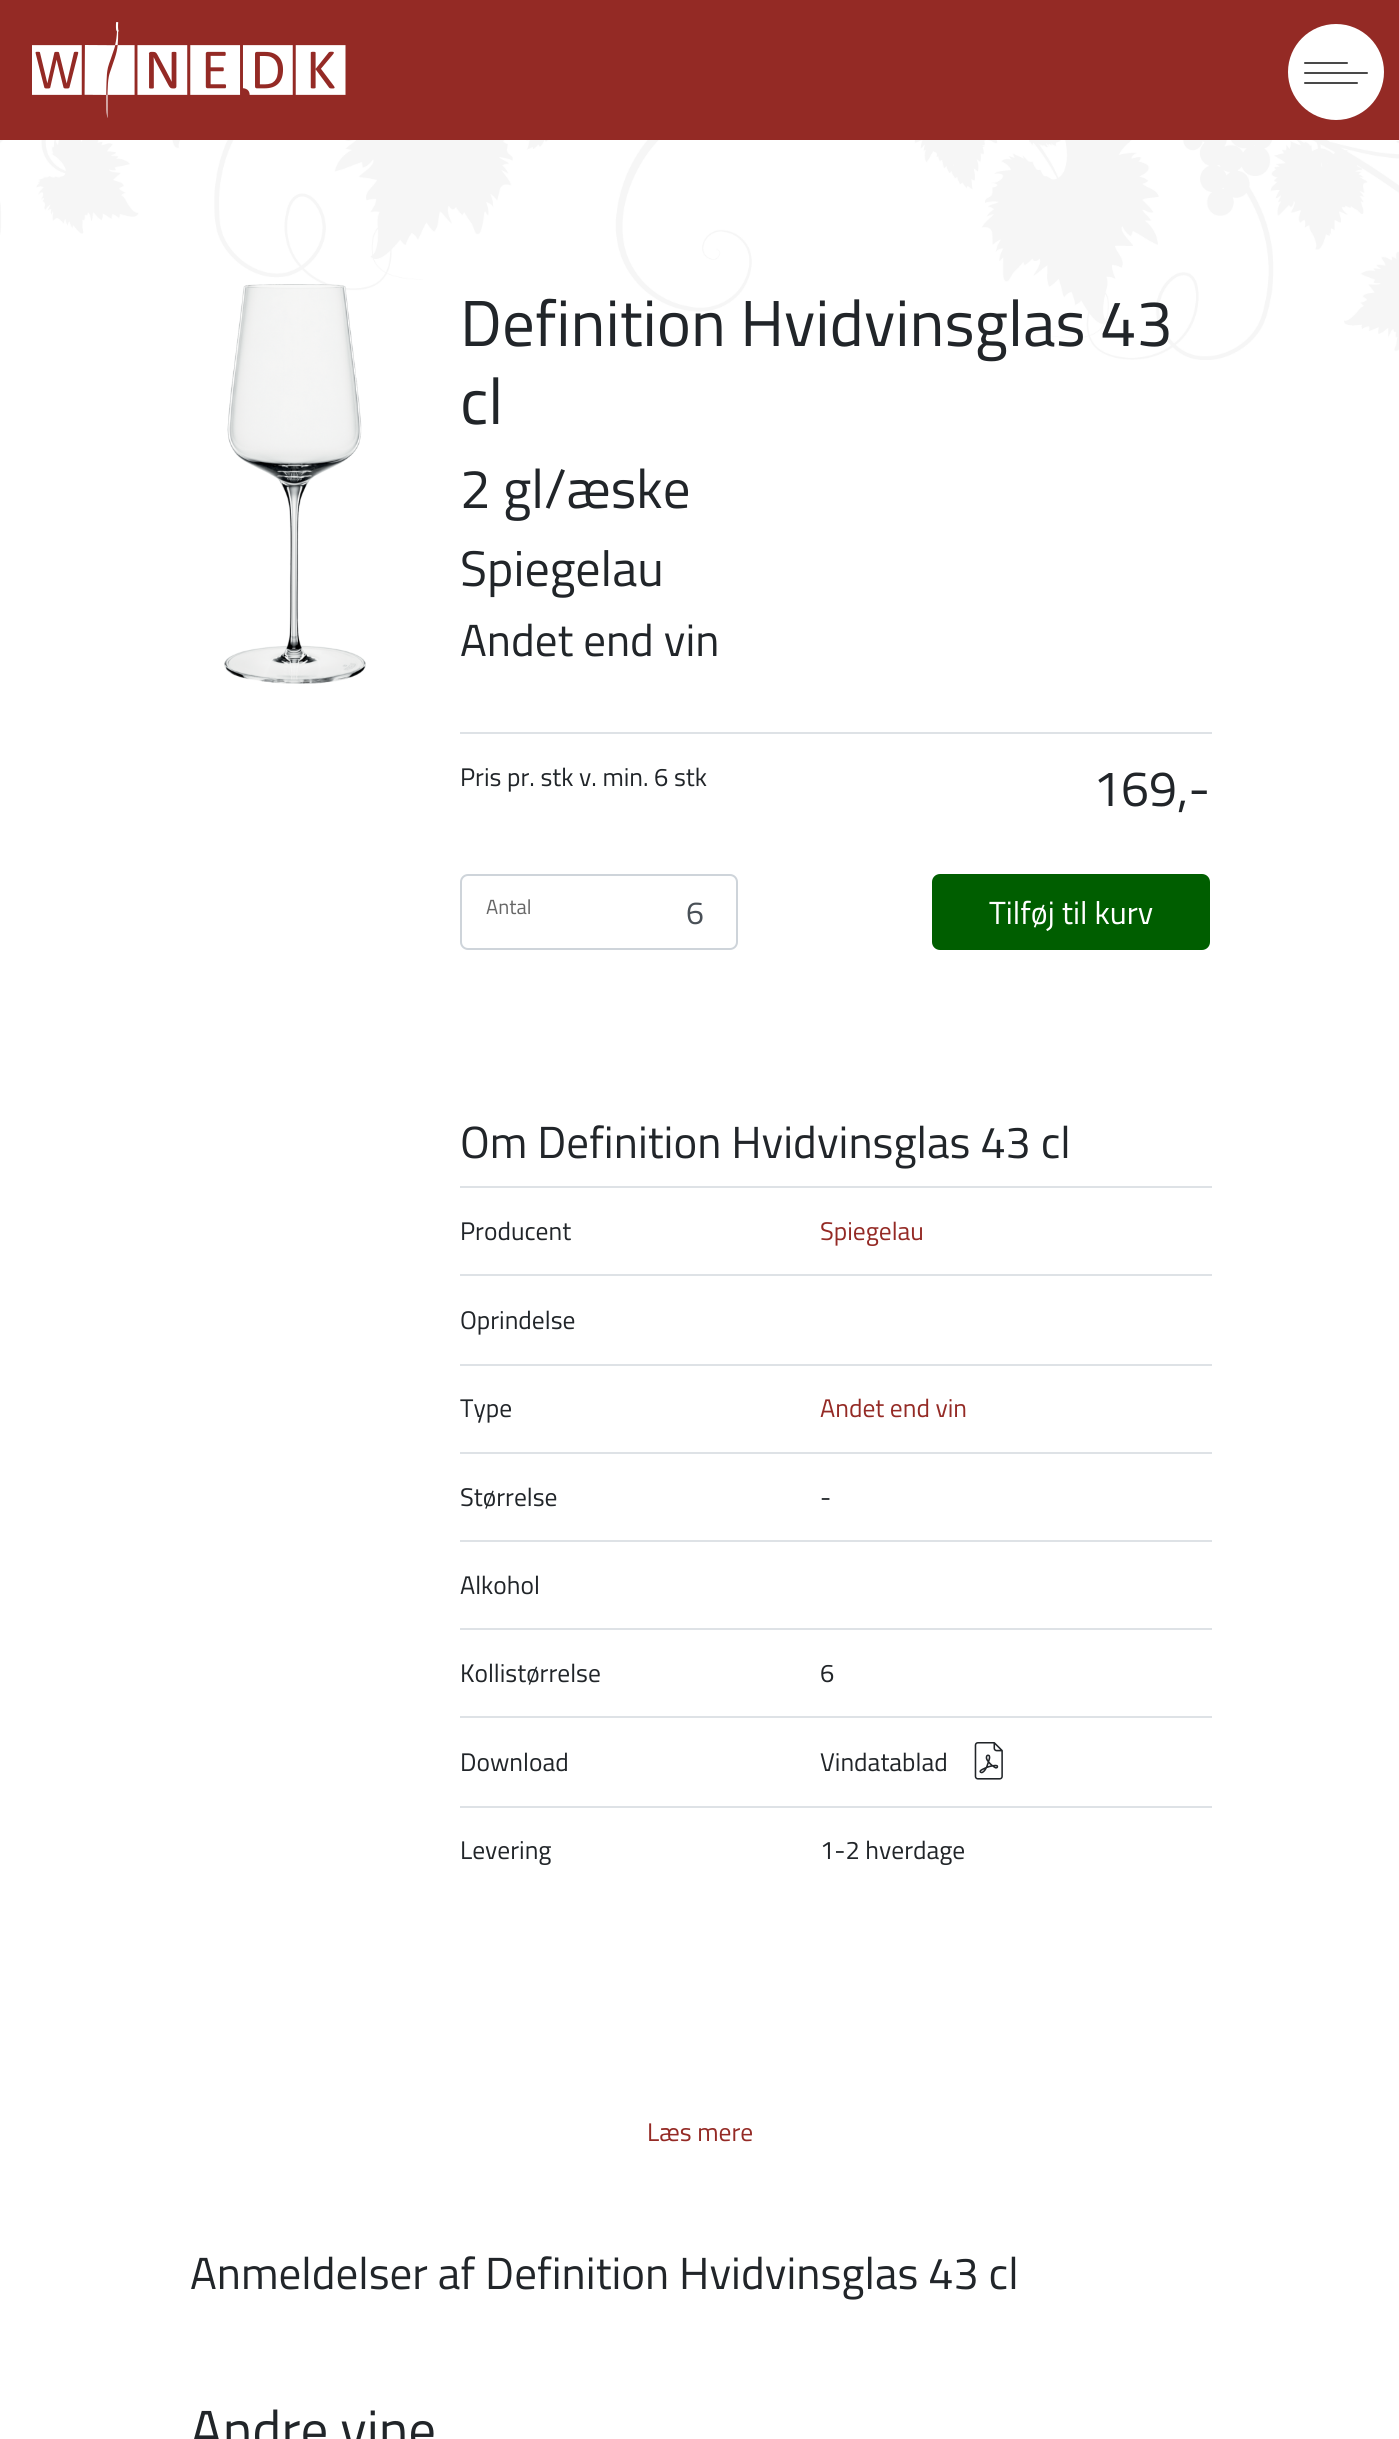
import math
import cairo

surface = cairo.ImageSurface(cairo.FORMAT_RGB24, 1399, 2439)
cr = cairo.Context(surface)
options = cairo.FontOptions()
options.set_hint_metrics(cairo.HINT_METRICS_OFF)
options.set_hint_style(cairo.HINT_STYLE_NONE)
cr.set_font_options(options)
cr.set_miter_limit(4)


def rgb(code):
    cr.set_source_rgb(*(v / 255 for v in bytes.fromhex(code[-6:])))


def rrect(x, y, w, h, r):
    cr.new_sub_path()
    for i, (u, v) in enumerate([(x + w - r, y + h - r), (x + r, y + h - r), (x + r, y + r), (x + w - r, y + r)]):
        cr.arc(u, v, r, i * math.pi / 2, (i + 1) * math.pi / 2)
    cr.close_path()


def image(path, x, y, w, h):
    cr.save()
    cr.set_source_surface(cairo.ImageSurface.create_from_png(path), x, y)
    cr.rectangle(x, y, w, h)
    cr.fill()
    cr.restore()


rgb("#ffffff")
cr.paint()
image("img/1.png", 0, 140, 1399, 220)
rgb("#942a25")
cr.rectangle(0, 0, 1399, 140)
cr.fill()
image("img/2.png", 32, 22, 314, 96)
rgb("#ffffff")
cr.arc(1336, 72, 48, 0, 2 * math.pi)
cr.fill()
rgb("#494949")
rrect(1304, 72, 64, 2, 1)
cr.fill()
rrect(1304, 62, 44, 2, 1)
cr.fill()
rrect(1304, 82, 54, 2, 1)
cr.fill()
image("img/3.png", 224, 284, 142, 400)
rgb("#dee2e6")
cr.rectangle(460, 732, 752, 2)
cr.fill()
rrect(461, 875, 276, 74, 7)
rgb("#ced4da")
cr.stroke()
rgb("#005e00")
rrect(933, 875, 276, 74, 7)
cr.fill_preserve()
cr.stroke()
for x, y, w, h, color in [
    (460, 1186, 752, 2, "#dee2e6"),
    (460, 1274, 752, 2, "#dee2e6"),
    (460, 1364, 752, 2, "#dee2e6"),
    (460, 1452, 752, 2, "#dee2e6"),
    (460, 1540, 752, 2, "#dee2e6"),
    (460, 1628, 752, 2, "#dee2e6"),
    (460, 1716, 752, 2, "#dee2e6"),
]:
    rgb(color)
    cr.rectangle(x, y, w, h)
    cr.fill()
image("img/4.png", 974, 1742, 29, 38)
cr.rectangle(460, 1806, 752, 2)
cr.fill()
cr.select_font_face("Titillium Web")
cr.set_font_size(65)
rgb("#212529")
cr.move_to(460, 346)
cr.show_text("Definition Hvidvinsglas 43")
cr.move_to(460, 424)
cr.show_text("cl")
cr.set_font_size(55)
cr.move_to(460, 508)
cr.show_text("2 gl/æske")
cr.set_font_size(50)
cr.move_to(460, 586)
cr.show_text("Spiegelau")
cr.set_font_size(45)
cr.move_to(460, 656)
cr.show_text("Andet end vin")
cr.set_font_size(25.5)
cr.move_to(460, 786)
cr.show_text("Pris pr. stk v. min. 6 stk")
cr.set_font_size(50)
cr.move_to(1093, 806)
cr.show_text("169,-")
cr.set_font_size(20.5)
rgb("#666666")
cr.move_to(486, 914)
cr.show_text("Antal")
cr.set_font_size(32)
rgb("#495057")
cr.move_to(686, 924)
cr.show_text("6")
rgb("#ffffff")
cr.move_to(989, 924)
cr.show_text("Tilføj til kurv")
cr.set_font_size(45)
rgb("#212529")
cr.move_to(460, 1158)
cr.show_text("Om Definition Hvidvinsglas 43 cl")
cr.set_font_size(25.5)
cr.move_to(460, 1240)
cr.show_text("Producent")
rgb("#942a25")
cr.move_to(820, 1240)
cr.show_text("Spiegelau")
rgb("#212529")
cr.move_to(460, 1329)
cr.show_text("Oprindelse")
cr.move_to(460, 1417)
cr.show_text("Type")
rgb("#942a25")
cr.move_to(820, 1417)
cr.show_text("Andet end vin")
rgb("#212529")
for x, y, s in [
    (460, 1506, "Størrelse"),
    (820, 1506, "-"),
    (460, 1594, "Alkohol"),
    (460, 1682, "Kollistørrelse"),
    (820, 1682, "6"),
    (460, 1771, "Download"),
    (820, 1771, "Vindatablad"),
    (460, 1859, "Levering"),
    (820, 1859, "1-2 hverdage"),
]:
    cr.move_to(x, y)
    cr.show_text(s)
rgb("#942a25")
cr.move_to(647, 2141)
cr.show_text("Læs mere")
cr.set_font_size(45)
rgb("#212529")
cr.move_to(190, 2289)
cr.show_text("Anmeldelser af Definition Hvidvinsglas 43 cl")
cr.set_font_size(55)
cr.move_to(190, 2449)
cr.show_text("Andre vine")
surface.write_to_png("page.png")
